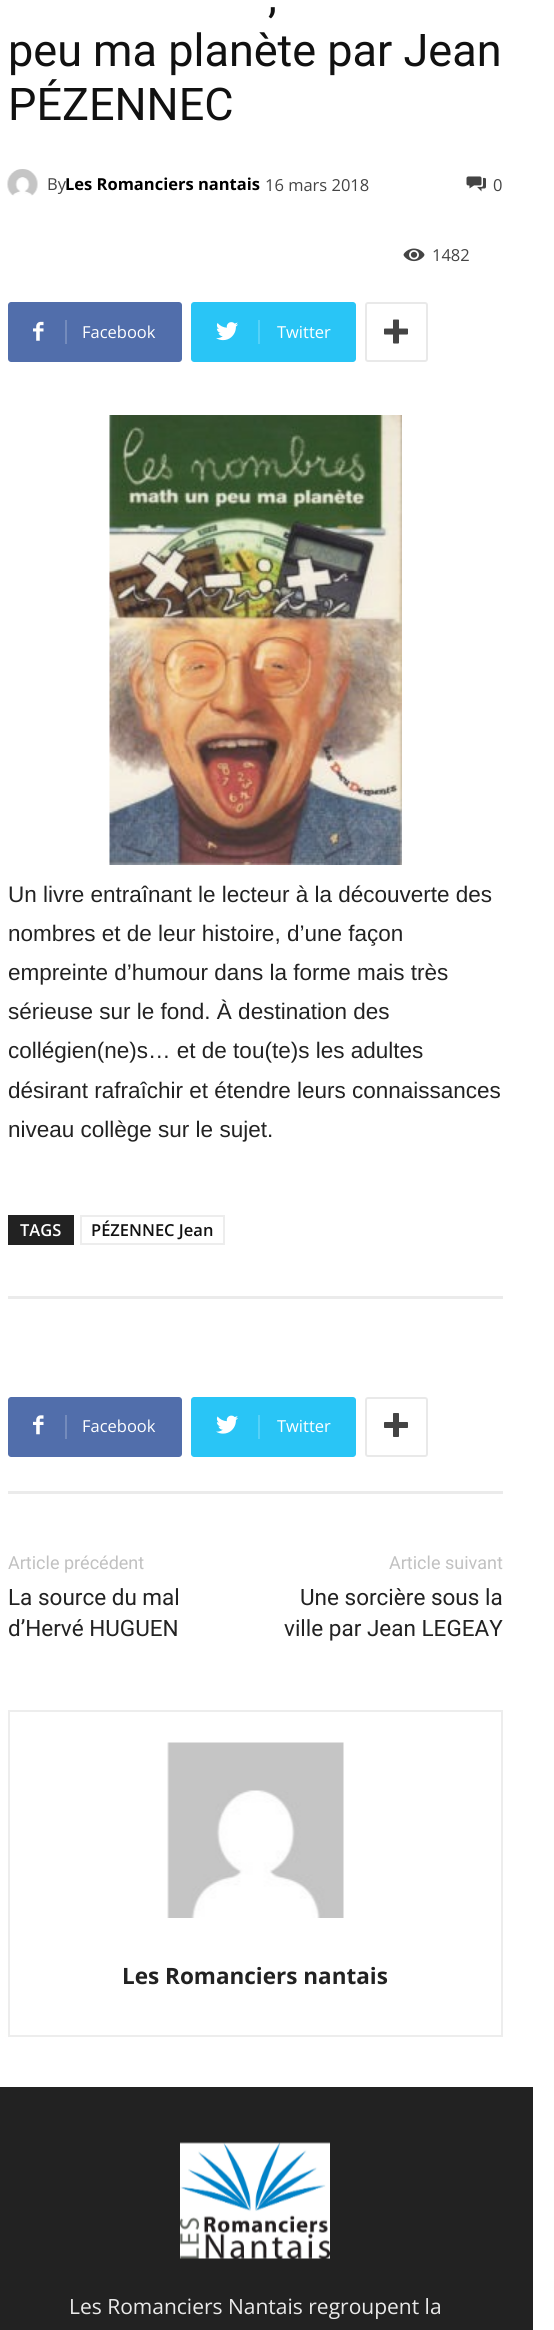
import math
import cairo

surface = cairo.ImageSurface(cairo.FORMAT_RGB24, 554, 2330)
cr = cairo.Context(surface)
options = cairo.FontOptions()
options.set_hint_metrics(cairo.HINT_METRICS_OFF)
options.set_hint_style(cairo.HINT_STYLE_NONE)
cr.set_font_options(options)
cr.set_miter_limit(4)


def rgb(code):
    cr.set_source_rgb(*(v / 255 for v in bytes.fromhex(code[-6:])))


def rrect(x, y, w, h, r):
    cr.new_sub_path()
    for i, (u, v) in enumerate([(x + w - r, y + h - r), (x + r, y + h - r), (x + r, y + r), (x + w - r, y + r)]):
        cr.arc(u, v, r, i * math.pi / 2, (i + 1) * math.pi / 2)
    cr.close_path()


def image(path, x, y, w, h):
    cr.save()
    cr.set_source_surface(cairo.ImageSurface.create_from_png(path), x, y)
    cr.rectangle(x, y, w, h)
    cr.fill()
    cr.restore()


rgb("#ffffff")
cr.paint()
image("img/1.png", 7, 169, 31, 27)
image("img/2.png", 466, 176, 20, 16)
image("img/3.png", 403, 248, 22, 14)
rgb("#516eab")
cr.new_path()
cr.move_to(65, 302)
cr.line_to(179, 302)
cr.curve_to(180.5, 302, 182, 303.5, 182, 305)
cr.line_to(182, 359)
cr.curve_to(182, 360.5, 180.5, 362, 179, 362)
cr.line_to(65, 362)
cr.close_path()
cr.fill()
cr.new_path()
cr.move_to(11, 302)
cr.line_to(69, 302)
cr.line_to(69, 362)
cr.line_to(11, 362)
cr.curve_to(9.5, 362, 8, 360.5, 8, 359)
cr.line_to(8, 305)
cr.curve_to(8, 303.5, 9.5, 302, 11, 302)
cr.close_path()
cr.fill()
image("img/4.png", 33, 321, 11, 20)
rgb("#748bbc")
cr.rectangle(65, 320, 2, 24)
cr.fill()
rgb("#29c5f6")
cr.new_path()
cr.move_to(258, 302)
cr.line_to(353, 302)
cr.curve_to(354.5, 302, 356, 303.5, 356, 305)
cr.line_to(356, 359)
cr.curve_to(356, 360.5, 354.5, 362, 353, 362)
cr.line_to(258, 362)
cr.close_path()
cr.fill()
cr.new_path()
cr.move_to(194, 302)
cr.line_to(264, 302)
cr.line_to(264, 362)
cr.line_to(194, 362)
cr.curve_to(192.5, 362, 191, 360.5, 191, 359)
cr.line_to(191, 305)
cr.curve_to(191, 303.5, 192.5, 302, 194, 302)
cr.close_path()
cr.fill()
image("img/5.png", 216, 322, 22, 19)
rgb("#54d1f8")
cr.rectangle(258, 320, 2, 24)
cr.fill()
rrect(366, 303, 61, 58, 2)
rgb("#e9e9e9")
cr.stroke()
image("img/6.png", 384, 319, 24, 25)
image("img/7.png", 109, 415, 293, 450)
rgb("#222222")
cr.rectangle(8, 1215, 66, 30)
cr.fill()
cr.rectangle(81, 1216, 143, 28)
rgb("#ededed")
cr.stroke()
rgb("#ebebeb")
cr.rectangle(8, 1296, 495, 3)
cr.fill()
rgb("#516eab")
cr.new_path()
cr.move_to(65, 1397)
cr.line_to(179, 1397)
cr.curve_to(180.5, 1397, 182, 1398.5, 182, 1400)
cr.line_to(182, 1454)
cr.curve_to(182, 1455.5, 180.5, 1457, 179, 1457)
cr.line_to(65, 1457)
cr.close_path()
cr.fill()
cr.new_path()
cr.move_to(11, 1397)
cr.line_to(69, 1397)
cr.line_to(69, 1457)
cr.line_to(11, 1457)
cr.curve_to(9.5, 1457, 8, 1455.5, 8, 1454)
cr.line_to(8, 1400)
cr.curve_to(8, 1398.5, 9.5, 1397, 11, 1397)
cr.close_path()
cr.fill()
image("img/8.png", 33, 1415, 11, 20)
rgb("#748bbc")
cr.rectangle(65, 1415, 2, 24)
cr.fill()
rgb("#29c5f6")
cr.new_path()
cr.move_to(258, 1397)
cr.line_to(353, 1397)
cr.curve_to(354.5, 1397, 356, 1398.5, 356, 1400)
cr.line_to(356, 1454)
cr.curve_to(356, 1455.5, 354.5, 1457, 353, 1457)
cr.line_to(258, 1457)
cr.close_path()
cr.fill()
cr.new_path()
cr.move_to(194, 1397)
cr.line_to(264, 1397)
cr.line_to(264, 1457)
cr.line_to(194, 1457)
cr.curve_to(192.5, 1457, 191, 1455.5, 191, 1454)
cr.line_to(191, 1400)
cr.curve_to(191, 1398.5, 192.5, 1397, 194, 1397)
cr.close_path()
cr.fill()
image("img/9.png", 216, 1415, 22, 19)
rgb("#54d1f8")
cr.rectangle(258, 1415, 2, 24)
cr.fill()
rrect(366, 1398, 61, 58, 2)
rgb("#e9e9e9")
cr.stroke()
image("img/10.png", 384, 1413, 24, 24)
rgb("#ebebeb")
cr.rectangle(8, 1491, 495, 3)
cr.fill()
cr.rectangle(9, 1711, 493, 325)
rgb("#ededed")
cr.stroke()
image("img/11.png", 167, 1742, 177, 176)
rgb("#222222")
cr.rectangle(0, 2087, 533, 243)
cr.fill()
image("img/12.png", 180, 2142, 150, 117)
cr.select_font_face("Roboto")
cr.set_font_size(45)
rgb("#111111")
for x, y, s in [
    (268, 12, ","),
    (8, 66, "peu ma planète par Jean"),
    (8, 120, "PÉZENNEC"),
]:
    cr.move_to(x, y)
    cr.show_text(s)
cr.select_font_face("Open Sans")
cr.set_font_size(16.5)
rgb("#444444")
cr.move_to(47, 190)
cr.show_text("By")
cr.select_font_face("Open Sans", cairo.FONT_SLANT_NORMAL, cairo.FONT_WEIGHT_BOLD)
rgb("#000000")
cr.move_to(65, 190)
cr.show_text("Les Romanciers nantais")
cr.select_font_face("Open Sans")
rgb("#444444")
for x, y, s in [
    (265, 191, "16 mars 2018"),
    (493, 191, "0"),
    (432, 261, "1482"),
]:
    cr.move_to(x, y)
    cr.show_text(s)
rgb("#ffffff")
cr.move_to(82, 338)
cr.show_text("Facebook")
cr.move_to(277, 338)
cr.show_text("Twitter")
cr.select_font_face("Liberation Sans")
cr.set_font_size(22.5)
rgb("#222222")
for x, y, s in [
    (8, 902, "Un livre entraînant le lecteur à la découverte des"),
    (8, 941, "nombres et de leur histoire, d’une façon"),
    (8, 980, "empreinte d’humour dans la forme mais très"),
    (8, 1019, "sérieuse sur le fond. À destination des"),
    (8, 1058, "collégien(ne)s… et de tou(te)s les adultes"),
    (8, 1098, "désirant rafraîchir et étendre leurs connaissances"),
    (8, 1137, "niveau collège sur le sujet."),
]:
    cr.move_to(x, y)
    cr.show_text(s)
cr.select_font_face("Open Sans SemiBold")
cr.set_font_size(16.5)
rgb("#ffffff")
cr.move_to(20, 1236)
cr.show_text("TAGS")
rgb("#111111")
cr.move_to(91, 1236)
cr.show_text("PÉZENNEC Jean")
cr.select_font_face("Open Sans")
rgb("#ffffff")
cr.move_to(82, 1432)
cr.show_text("Facebook")
cr.move_to(277, 1432)
cr.show_text("Twitter")
cr.select_font_face("Roboto")
cr.set_font_size(18)
rgb("#c1c1c1")
cr.move_to(8, 1569)
cr.show_text("Article précédent")
cr.set_font_size(22.5)
rgb("#222222")
cr.move_to(8, 1605)
cr.show_text("La source du mal")
cr.move_to(8, 1636)
cr.show_text("d’Hervé HUGUEN")
cr.set_font_size(18)
rgb("#c1c1c1")
cr.move_to(389, 1569)
cr.show_text("Article suivant")
cr.set_font_size(22.5)
rgb("#222222")
cr.move_to(300, 1605)
cr.show_text("Une sorcière sous la")
cr.move_to(284, 1636)
cr.show_text("ville par Jean LEGEAY")
cr.select_font_face("Open Sans", cairo.FONT_SLANT_NORMAL, cairo.FONT_WEIGHT_BOLD)
cr.move_to(122, 1984)
cr.show_text("Les Romanciers nantais")
cr.select_font_face("Open Sans")
cr.set_font_size(21)
rgb("#eaeaea")
cr.move_to(69, 2314)
cr.show_text("Les Romanciers Nantais regroupent la")
surface.write_to_png("page.png")
